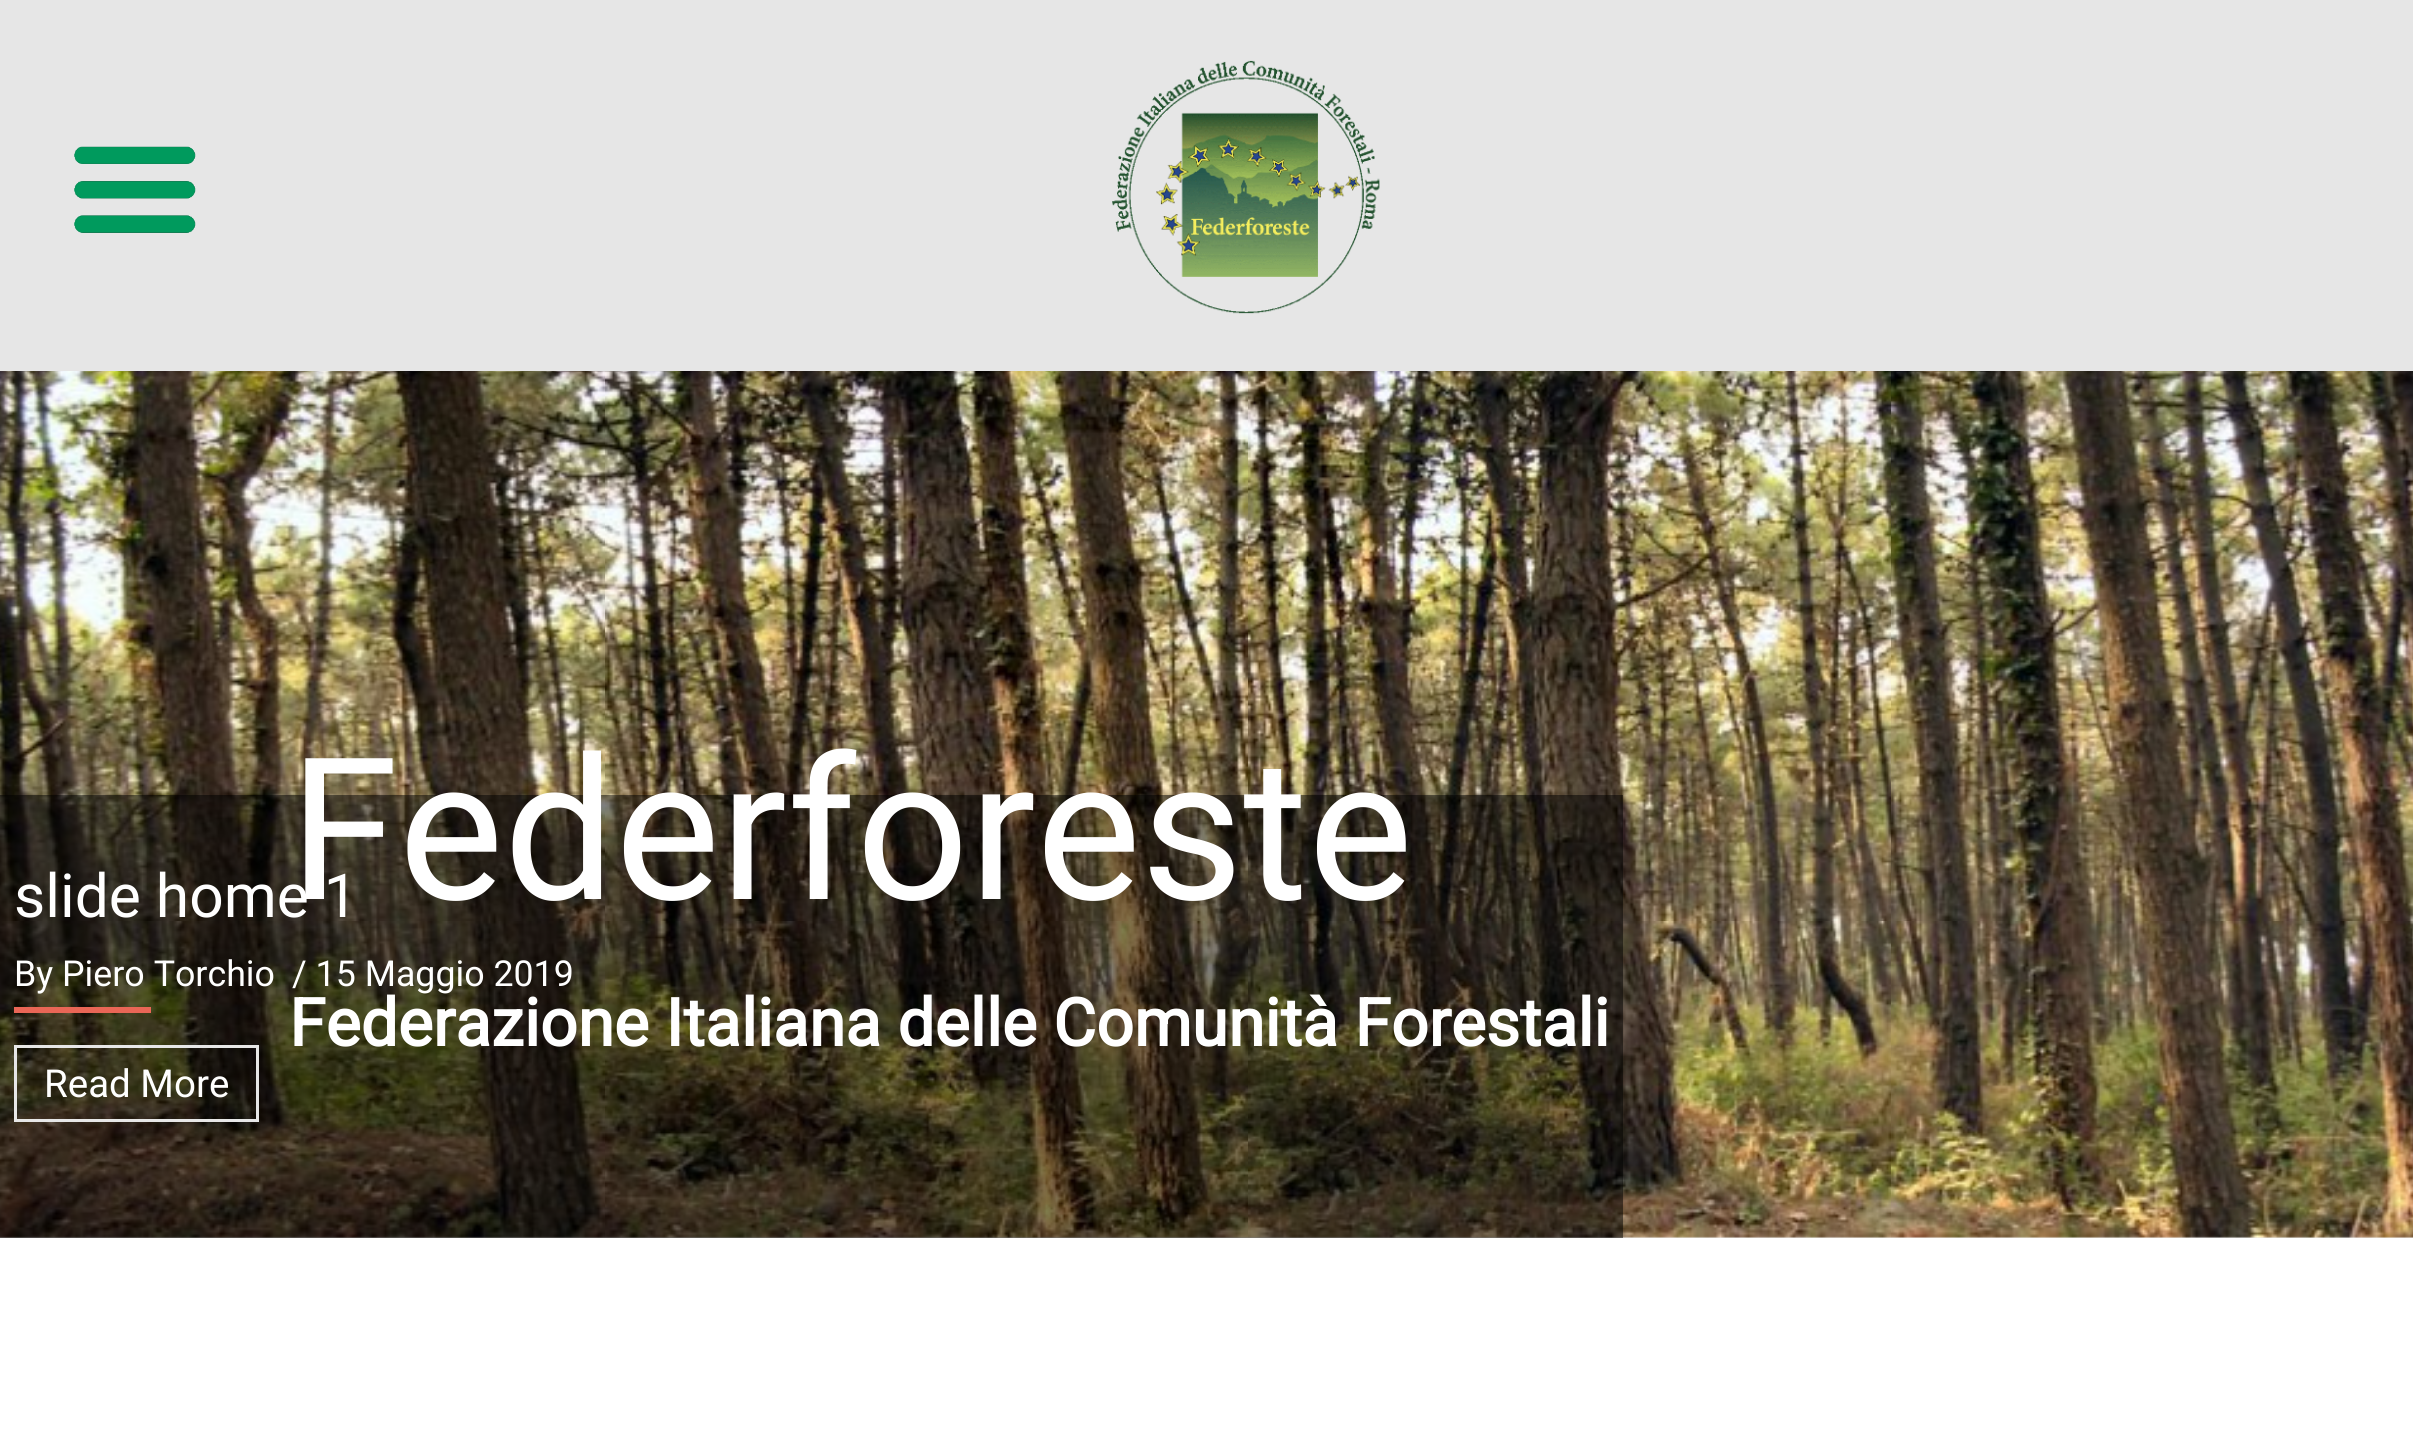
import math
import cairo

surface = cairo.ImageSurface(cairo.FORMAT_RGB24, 2413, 1445)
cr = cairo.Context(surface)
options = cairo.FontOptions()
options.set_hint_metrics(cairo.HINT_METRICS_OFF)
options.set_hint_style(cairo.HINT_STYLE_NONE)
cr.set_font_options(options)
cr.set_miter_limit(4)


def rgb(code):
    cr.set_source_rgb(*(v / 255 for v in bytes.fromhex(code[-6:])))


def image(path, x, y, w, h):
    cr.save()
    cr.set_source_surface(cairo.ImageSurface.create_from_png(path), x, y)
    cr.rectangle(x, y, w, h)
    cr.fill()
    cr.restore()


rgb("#ffffff")
cr.paint()
rgb("#e6e6e6")
cr.rectangle(0, 0, 2413, 371)
cr.fill()
image("img/1.png", 74, 146, 122, 87)
image("img/2.png", 1112, 60, 268, 254)
rgb("#f1f1f1")
cr.rectangle(0, 1236, 2413, 2)
cr.fill()
image("img/3.png", 0, 371, 2413, 867)
cr.set_source_rgba(0, 0, 0, 0.5)
cr.rectangle(0, 795, 1623, 443)
cr.fill()
rgb("#e96656")
cr.rectangle(14, 1007, 137, 6)
cr.fill()
cr.rectangle(15.5, 1046.5, 242, 74)
rgb("#e7e7e7")
cr.set_line_width(3)
cr.stroke()
cr.select_font_face("Roboto", cairo.FONT_SLANT_NORMAL, cairo.FONT_WEIGHT_BOLD)
cr.set_font_size(66)
rgb("#ffffff")
cr.move_to(289, 1046)
cr.show_text("Federazione Italiana delle Comunità Forestali")
cr.select_font_face("Roboto")
cr.set_font_size(60.5)
cr.move_to(14, 917)
cr.show_text("slide home 1")
cr.set_font_size(198)
cr.move_to(289, 899)
cr.show_text("Federforeste")
cr.set_font_size(35.75)
cr.move_to(14, 986)
cr.show_text("By Piero Torchio")
cr.move_to(292, 986)
cr.show_text("/ 15 Maggio 2019")
cr.set_font_size(38.5)
cr.move_to(44, 1097)
cr.show_text("Read More")
surface.write_to_png("page.png")
